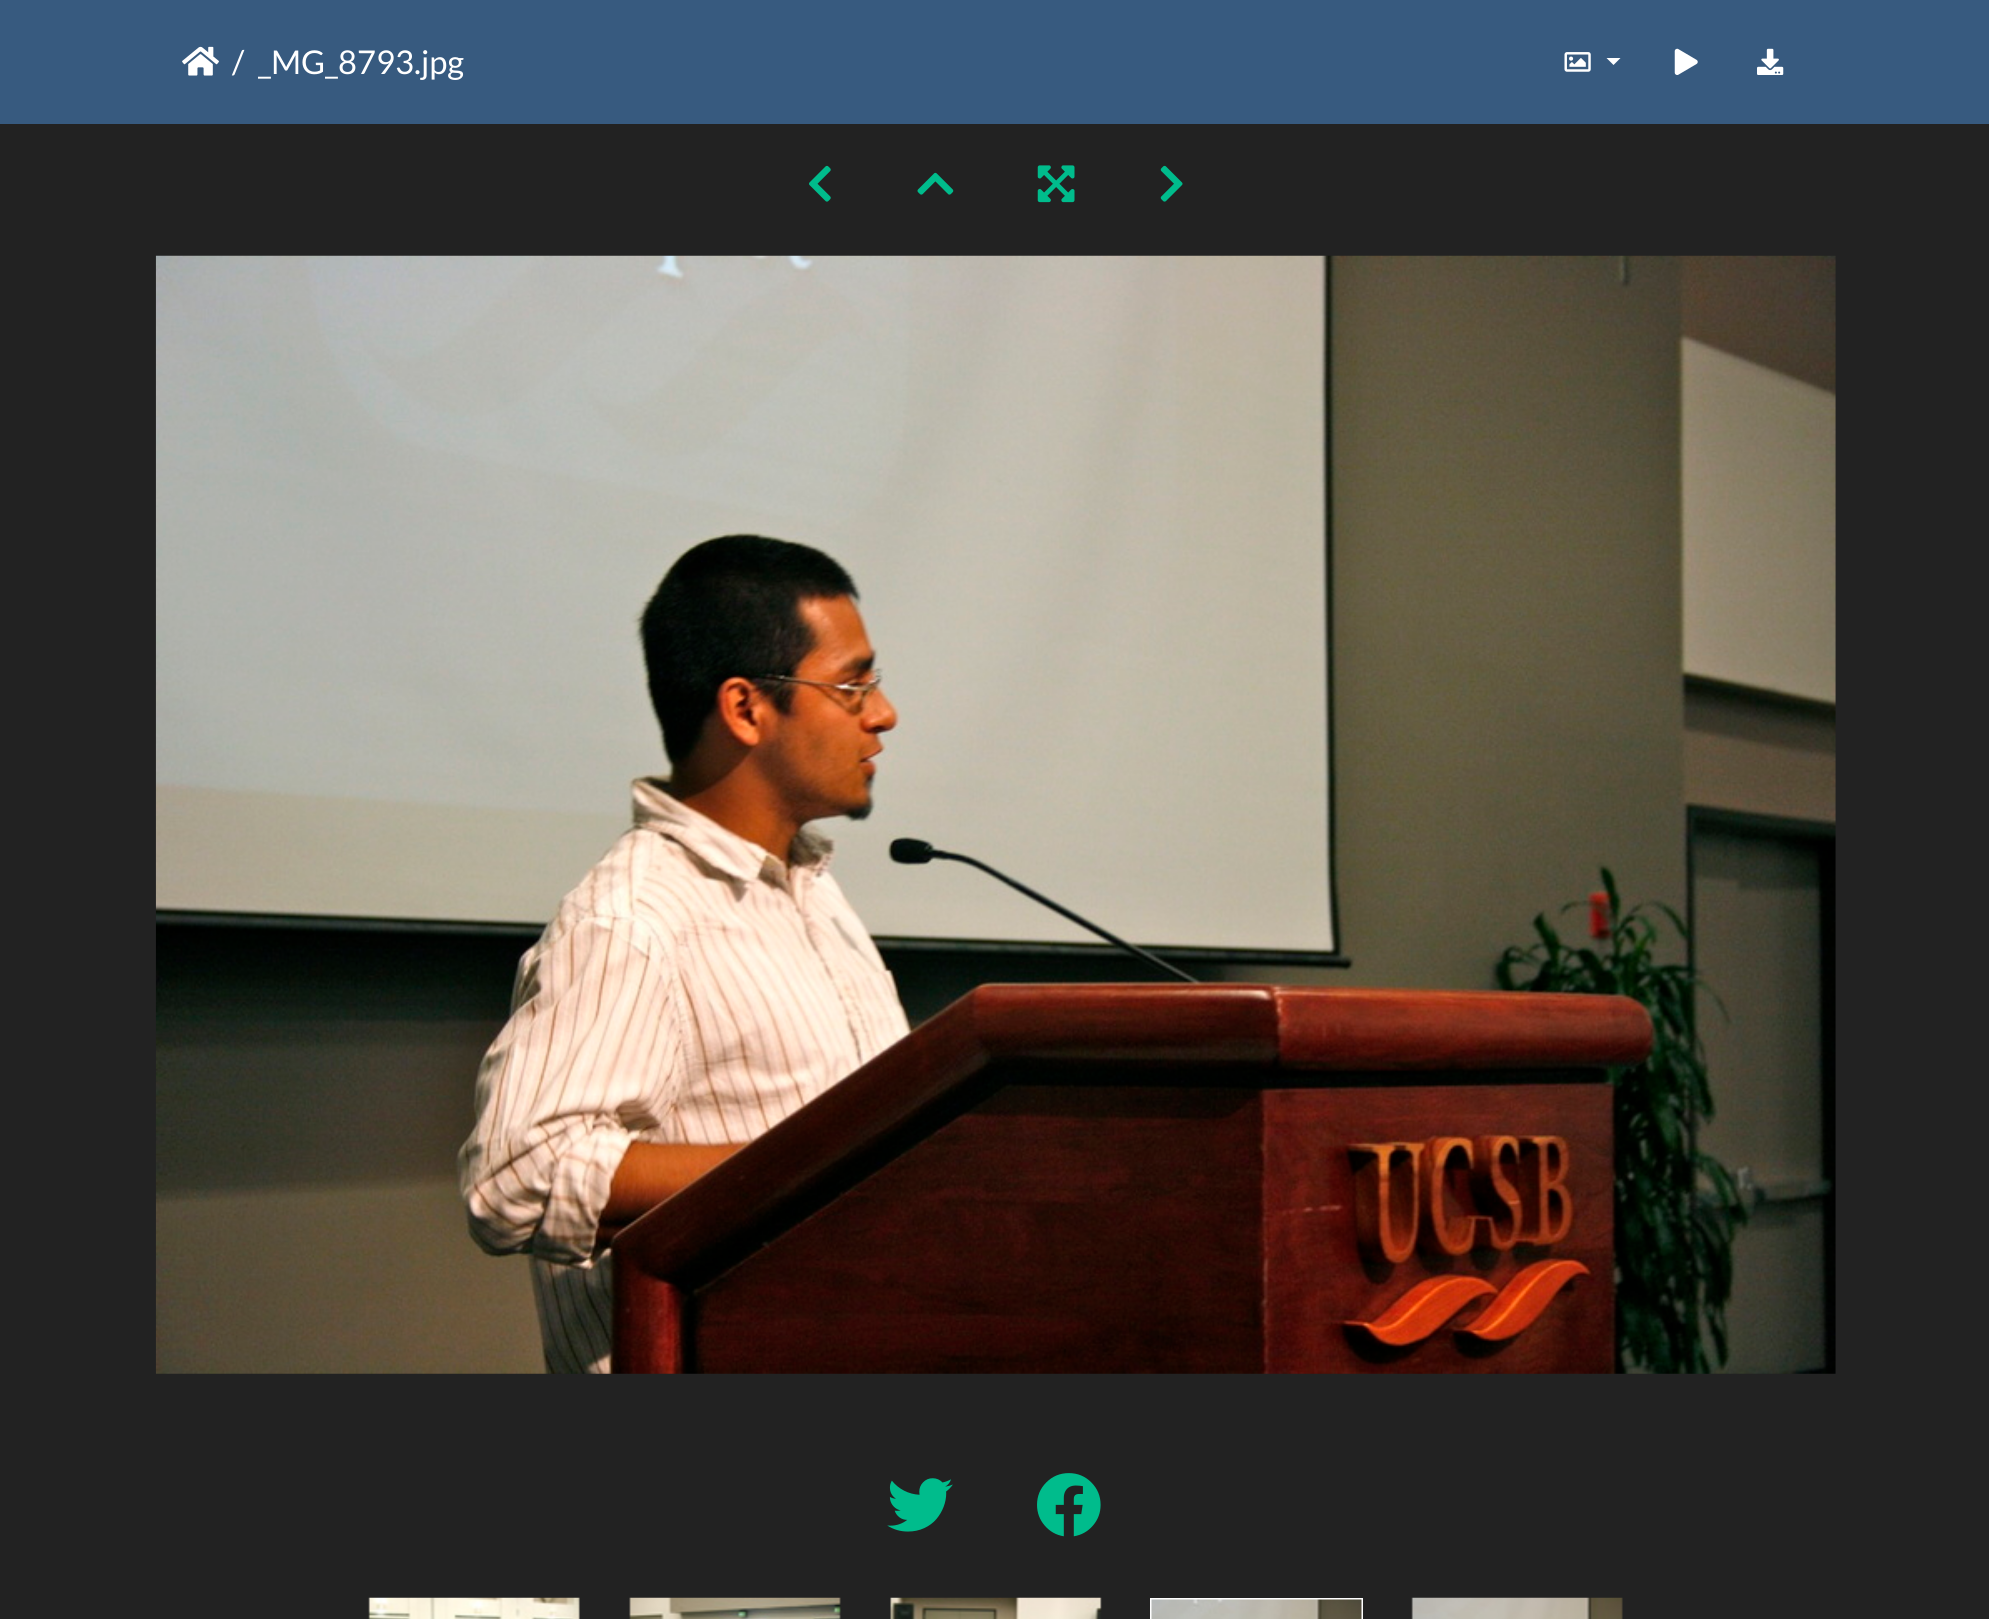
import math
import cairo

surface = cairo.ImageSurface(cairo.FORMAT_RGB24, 1989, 1619)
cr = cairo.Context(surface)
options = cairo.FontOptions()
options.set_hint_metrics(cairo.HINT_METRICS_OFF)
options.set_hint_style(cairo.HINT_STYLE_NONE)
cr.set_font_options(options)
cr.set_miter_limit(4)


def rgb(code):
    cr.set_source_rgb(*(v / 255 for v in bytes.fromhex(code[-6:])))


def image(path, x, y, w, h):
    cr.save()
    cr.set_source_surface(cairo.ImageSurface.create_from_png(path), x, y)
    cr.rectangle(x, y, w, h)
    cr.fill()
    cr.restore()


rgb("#222222")
cr.paint()
rgb("#375a7f")
cr.rectangle(0, 0, 1989, 124)
cr.fill()
image("img/1.png", 182, 46, 37, 30)
image("img/2.png", 1564, 52, 27, 20)
rgb("#ffffff")
cr.new_path()
cr.move_to(1606.5, 58)
cr.line_to(1620.5, 58)
cr.line_to(1613.5, 65)
cr.close_path()
cr.fill()
image("img/3.png", 1674, 48, 24, 27)
image("img/4.png", 1757, 48, 27, 27)
image("img/5.png", 809, 165, 22, 37)
image("img/6.png", 917, 172, 37, 23)
image("img/7.png", 1037, 165, 38, 38)
image("img/8.png", 1160, 165, 23, 37)
image("img/9.png", 155, 255, 1681, 1119)
image("img/10.png", 887, 1478, 66, 54)
image("img/11.png", 1037, 1473, 64, 64)
image("img/12.png", 368, 1597, 212, 22)
image("img/13.png", 629, 1597, 212, 22)
image("img/14.png", 890, 1597, 212, 22)
cr.rectangle(1151, 1599, 211, 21)
cr.stroke()
image("img/15.png", 1151, 1599, 211, 20)
image("img/16.png", 1411, 1597, 212, 22)
cr.select_font_face("Lato")
cr.set_font_size(32.75)
cr.move_to(232, 74)
cr.show_text("/")
cr.move_to(258, 74)
cr.show_text("_MG_8793.jpg")
surface.write_to_png("page.png")
